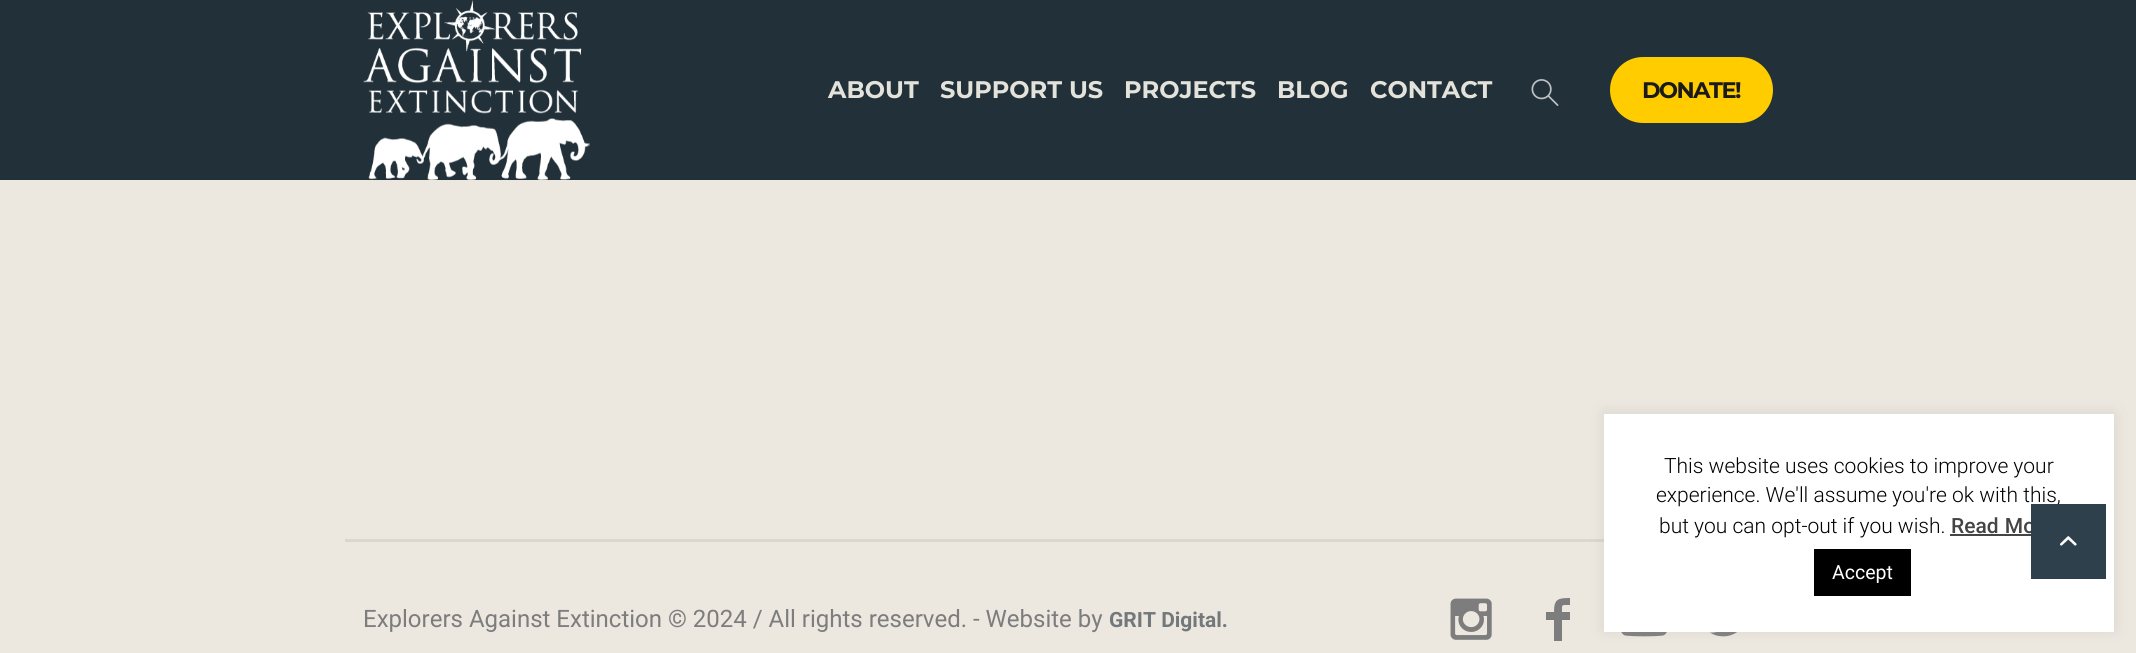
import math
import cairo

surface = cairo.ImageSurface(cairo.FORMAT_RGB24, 2136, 653)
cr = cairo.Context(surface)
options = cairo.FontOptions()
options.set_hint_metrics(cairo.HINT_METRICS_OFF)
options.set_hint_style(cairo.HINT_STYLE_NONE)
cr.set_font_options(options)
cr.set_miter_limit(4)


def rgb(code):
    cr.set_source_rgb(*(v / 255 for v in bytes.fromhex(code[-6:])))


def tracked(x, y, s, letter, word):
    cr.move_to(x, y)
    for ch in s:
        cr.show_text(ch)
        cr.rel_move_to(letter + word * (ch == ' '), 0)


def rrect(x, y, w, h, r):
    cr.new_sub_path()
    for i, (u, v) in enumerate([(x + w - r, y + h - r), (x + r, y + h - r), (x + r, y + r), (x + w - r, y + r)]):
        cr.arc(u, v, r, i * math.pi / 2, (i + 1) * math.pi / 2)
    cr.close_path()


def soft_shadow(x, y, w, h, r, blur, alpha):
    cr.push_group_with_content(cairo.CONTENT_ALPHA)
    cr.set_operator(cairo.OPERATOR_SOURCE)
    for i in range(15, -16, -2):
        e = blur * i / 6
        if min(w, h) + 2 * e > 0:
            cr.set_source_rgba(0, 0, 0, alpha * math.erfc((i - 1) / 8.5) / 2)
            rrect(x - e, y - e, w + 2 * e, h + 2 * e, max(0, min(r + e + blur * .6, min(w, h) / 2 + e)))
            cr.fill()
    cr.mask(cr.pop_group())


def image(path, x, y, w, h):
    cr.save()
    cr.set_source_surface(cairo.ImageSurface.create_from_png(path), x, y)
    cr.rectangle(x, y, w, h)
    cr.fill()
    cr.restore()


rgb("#ece7df")
cr.paint()
rgb("#223139")
cr.rectangle(0, 0, 2136, 180)
cr.fill()
image("img/1.png", 363, 0, 227, 180)
image("img/2.png", 1531, 79, 28, 27)
rgb("#ffcc00")
rrect(1611.5, 58.5, 160, 63, 31.5)
cr.fill_preserve()
cr.set_line_width(3)
cr.stroke()
rgb("#dcd6cd")
cr.rectangle(345, 539, 1259, 3)
cr.fill()
image("img/4.png", 1450, 598, 42, 42)
rgb("#7d7d7d")
cr.new_path()
cr.move_to(1570, 605)
cr.curve_to(1561, 605, 1562, 604, 1562, 612)
cr.line_to(1570, 612)
cr.line_to(1570, 620)
cr.line_to(1562, 620)
cr.line_to(1562, 641)
cr.line_to(1554, 641)
cr.line_to(1554, 620)
cr.line_to(1546, 620)
cr.line_to(1546, 612)
cr.line_to(1554, 612)
cr.curve_to(1554, 599, 1558, 598, 1570, 598)
cr.close_path()
cr.fill()
image("img/5.png", 1621, 632, 46, 5)
image("img/6.png", 1710, 632, 27, 5)
rgb("#acabab")
soft_shadow(1604, 413, 510, 217, 0, 7.5, 0.3)
for x, y, w, h, color in [
    (1604, 414, 510, 218, "#ffffff"),
    (1950, 534, 81, 2, "#444444"),
    (1814, 549, 97, 47, "#000000"),
]:
    rgb(color)
    cr.rectangle(x, y, w, h)
    cr.fill()
cr.select_font_face("Montserrat", cairo.FONT_SLANT_NORMAL, cairo.FONT_WEIGHT_BOLD)
cr.set_font_size(24)
rgb("#e3e2db")
for x, y, s in [
    (828, 98, "ABOUT"),
    (940, 98, "SUPPORT US"),
    (1124, 98, "PROJECTS"),
    (1277, 98, "BLOG"),
    (1370, 98, "CONTACT"),
]:
    cr.move_to(x, y)
    cr.show_text(s)
cr.set_font_size(22.5)
rgb("#1a1a1a")
tracked(1642, 98, "DONATE!", -1.5, 0)
cr.select_font_face("Roboto")
cr.set_font_size(24)
rgb("#7d7d7d")
cr.move_to(363, 627)
cr.show_text("Explorers Against Extinction © 2024 / All rights reserved. - Website by")
cr.select_font_face("Roboto", cairo.FONT_SLANT_NORMAL, cairo.FONT_WEIGHT_BOLD)
cr.set_font_size(21)
rgb("#73787b")
cr.move_to(1109, 627)
cr.show_text("GRIT Digital.")
cr.select_font_face("Roboto Light")
rgb("#000000")
for x, y, s in [
    (1664, 473, "This website uses cookies to improve your"),
    (1656, 502, "experience. We'll assume you're ok with this,"),
    (1659, 533, "but you can opt-out if you wish."),
]:
    cr.move_to(x, y)
    cr.show_text(s)
cr.select_font_face("Roboto Medium")
rgb("#444444")
tracked(1951, 533, "Read Mo", 0, 1)
rgb("#2e404b")
cr.rectangle(2031, 504, 75, 75)
cr.fill()
image("img/3.png", 2060, 536, 17, 10)
cr.select_font_face("Roboto")
cr.set_font_size(19.5)
rgb("#ffffff")
cr.move_to(1832, 579)
cr.show_text("Accept")
surface.write_to_png("page.png")
